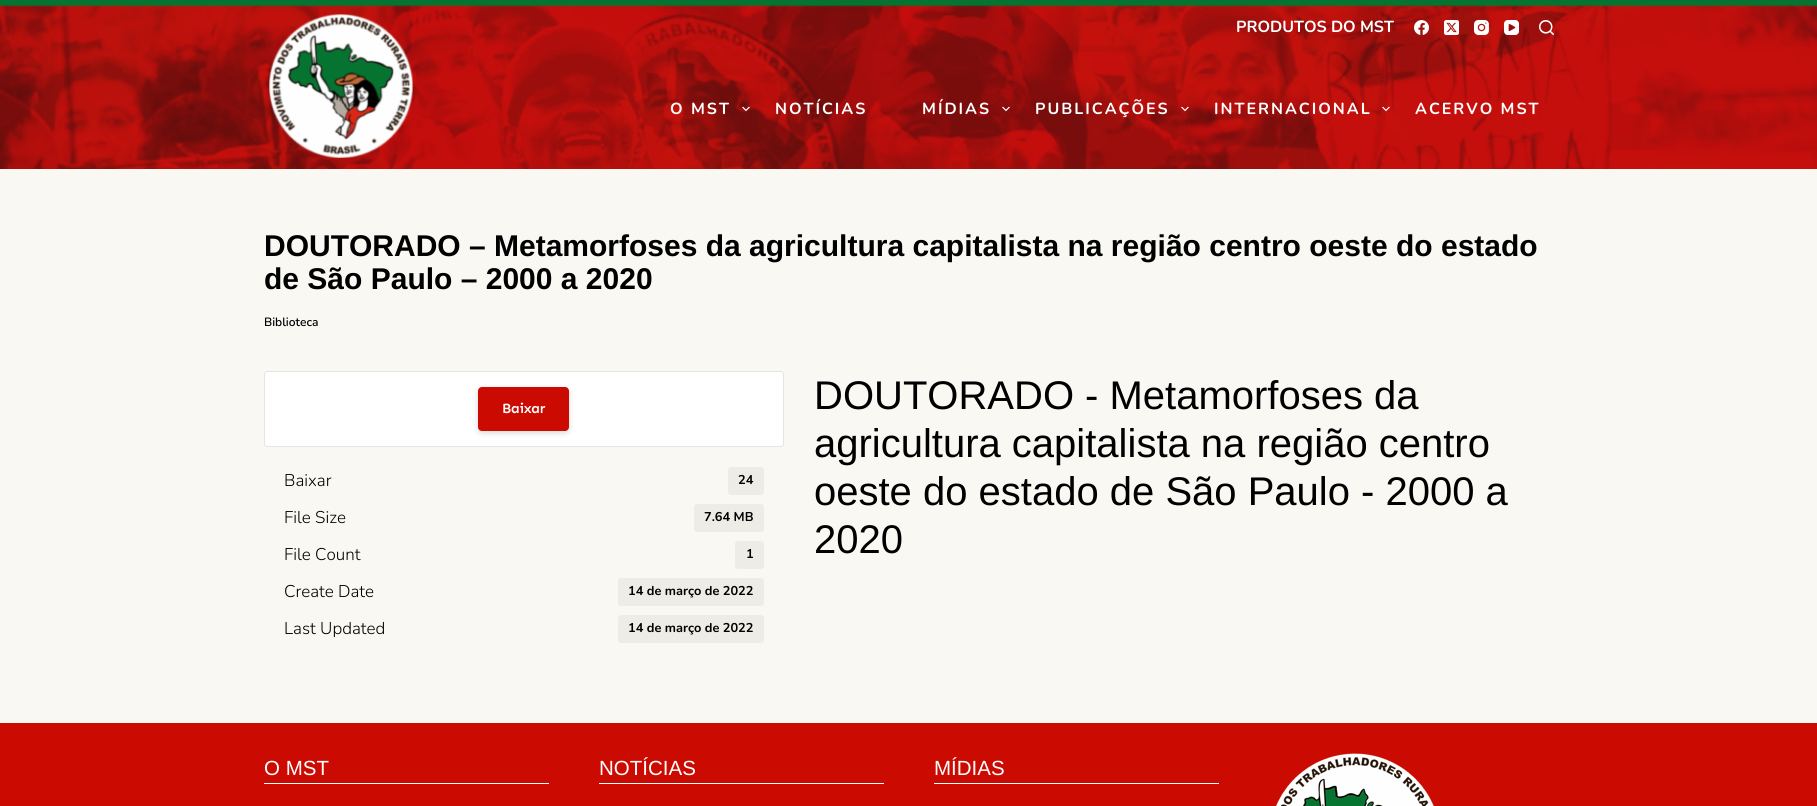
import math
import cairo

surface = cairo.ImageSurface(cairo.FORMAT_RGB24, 1817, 806)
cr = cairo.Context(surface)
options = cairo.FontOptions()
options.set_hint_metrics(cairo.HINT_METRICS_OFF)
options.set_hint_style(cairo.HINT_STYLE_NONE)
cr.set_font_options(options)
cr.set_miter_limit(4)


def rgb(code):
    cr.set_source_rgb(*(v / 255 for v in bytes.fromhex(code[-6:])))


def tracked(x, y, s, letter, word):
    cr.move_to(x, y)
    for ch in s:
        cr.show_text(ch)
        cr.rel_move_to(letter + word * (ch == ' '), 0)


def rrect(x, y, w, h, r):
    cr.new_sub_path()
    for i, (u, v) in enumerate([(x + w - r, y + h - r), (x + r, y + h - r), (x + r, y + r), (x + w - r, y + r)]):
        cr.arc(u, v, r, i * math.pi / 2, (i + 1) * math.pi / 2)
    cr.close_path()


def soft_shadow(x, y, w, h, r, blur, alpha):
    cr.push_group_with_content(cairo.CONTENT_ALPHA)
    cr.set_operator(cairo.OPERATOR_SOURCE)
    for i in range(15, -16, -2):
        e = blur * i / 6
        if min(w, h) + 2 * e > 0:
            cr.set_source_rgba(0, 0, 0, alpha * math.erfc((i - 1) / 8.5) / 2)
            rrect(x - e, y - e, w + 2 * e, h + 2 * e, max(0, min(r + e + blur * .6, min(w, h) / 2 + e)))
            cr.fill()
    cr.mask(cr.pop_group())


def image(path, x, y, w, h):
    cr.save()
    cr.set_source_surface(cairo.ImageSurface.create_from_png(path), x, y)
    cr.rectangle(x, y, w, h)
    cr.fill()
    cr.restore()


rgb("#f9f8f3")
cr.paint()
rgb("#057430")
cr.rectangle(0, 0, 1817, 5)
cr.fill()
image("img/1.png", 0, 5, 1817, 164)
image("img/2.png", 1414, 20, 15, 15)
image("img/3.png", 1444, 20, 15, 15)
image("img/4.png", 1474, 20, 15, 15)
image("img/5.png", 1504, 20, 15, 15)
image("img/6.png", 1539, 20, 15, 15)
image("img/7.png", 269, 14, 144, 144)
image("img/8.png", 742, 106, 8, 6)
image("img/9.png", 1002, 106, 8, 6)
image("img/10.png", 1181, 106, 8, 6)
image("img/11.png", 1382, 106, 8, 6)
rgb("#ffffff")
rrect(264.5, 371.5, 519, 75, 2.5)
cr.fill_preserve()
rgb("#e5e5e5")
cr.set_line_width(1)
cr.stroke()
rgb("#000000")
soft_shadow(478, 389, 91, 44, 4, 3, 0.15)
rgb("#cb0a01")
rrect(478, 387, 91, 44, 4)
cr.fill()
rgb("#edece7")
rrect(728, 467, 36, 28, 3)
cr.fill()
rrect(694, 504, 70, 28, 3)
cr.fill()
rrect(735, 541, 29, 28, 3)
cr.fill()
rrect(618, 578, 146, 28, 3)
cr.fill()
rrect(618, 615, 146, 28, 3)
cr.fill()
for x, y, w, h, color in [
    (0, 723, 1817, 83, "#cb0a01"),
    (264, 783, 285, 1, "#ffffff"),
    (599, 783, 285, 1, "#ffffff"),
    (934, 783, 285, 1, "#ffffff"),
]:
    rgb(color)
    cr.rectangle(x, y, w, h)
    cr.fill()
image("img/12.png", 1276, 753, 158, 53)
cr.select_font_face("Nunito", cairo.FONT_SLANT_NORMAL, cairo.FONT_WEIGHT_BOLD)
cr.set_font_size(16)
cr.move_to(1236, 32)
cr.show_text("PRODUTOS DO MST")
for x, y, s in [
    (670, 114, "O MST"),
    (775, 114, "NOTÍCIAS"),
    (922, 114, "MÍDIAS"),
    (1035, 114, "PUBLICAÇÕES"),
    (1214, 114, "INTERNACIONAL"),
    (1415, 114, "ACERVO MST"),
]:
    tracked(x, y, s, 2, 0)
cr.select_font_face("Liberation Sans", cairo.FONT_SLANT_NORMAL, cairo.FONT_WEIGHT_BOLD)
cr.set_font_size(30)
rgb("#000000")
cr.move_to(264, 256)
cr.show_text("DOUTORADO – Metamorfoses da agricultura capitalista na região centro oeste do estado")
cr.move_to(264, 289)
cr.show_text("de São Paulo – 2000 a 2020")
cr.select_font_face("Nunito SemiBold")
cr.set_font_size(12)
cr.move_to(264, 326)
cr.show_text("Biblioteca")
cr.select_font_face("Sen SemiBold")
cr.set_font_size(14)
rgb("#ffffff")
tracked(502, 413, "Baixar", -0.25, 0)
cr.select_font_face("Nunito Light")
cr.set_font_size(17)
rgb("#000000")
cr.move_to(284, 486)
cr.show_text("Baixar")
cr.select_font_face("Nunito", cairo.FONT_SLANT_NORMAL, cairo.FONT_WEIGHT_BOLD)
cr.set_font_size(12.75)
cr.move_to(738, 484)
cr.show_text("24")
cr.select_font_face("Nunito Light")
cr.set_font_size(17)
cr.move_to(284, 523)
cr.show_text("File Size")
cr.select_font_face("Nunito", cairo.FONT_SLANT_NORMAL, cairo.FONT_WEIGHT_BOLD)
cr.set_font_size(12.75)
cr.move_to(704, 521)
cr.show_text("7.64 MB")
cr.select_font_face("Nunito Light")
cr.set_font_size(17)
cr.move_to(284, 560)
cr.show_text("File Count")
cr.select_font_face("Nunito", cairo.FONT_SLANT_NORMAL, cairo.FONT_WEIGHT_BOLD)
cr.set_font_size(12.75)
cr.move_to(746, 558)
cr.show_text("1")
cr.select_font_face("Nunito Light")
cr.set_font_size(17)
cr.move_to(284, 597)
cr.show_text("Create Date")
cr.select_font_face("Nunito", cairo.FONT_SLANT_NORMAL, cairo.FONT_WEIGHT_BOLD)
cr.set_font_size(12.75)
cr.move_to(628, 595)
cr.show_text("14 de março de 2022")
cr.select_font_face("Nunito Light")
cr.set_font_size(17)
cr.move_to(284, 634)
cr.show_text("Last Updated")
cr.select_font_face("Nunito", cairo.FONT_SLANT_NORMAL, cairo.FONT_WEIGHT_BOLD)
cr.set_font_size(12.75)
cr.move_to(628, 632)
cr.show_text("14 de março de 2022")
cr.select_font_face("Liberation Sans")
cr.set_font_size(40)
for x, y, s in [
    (814, 409, "DOUTORADO - Metamorfoses da"),
    (814, 457, "agricultura capitalista na região centro"),
    (814, 505, "oeste do estado de São Paulo - 2000 a"),
    (814, 553, "2020"),
]:
    cr.move_to(x, y)
    cr.show_text(s)
cr.set_font_size(20.5)
rgb("#ffffff")
for x, y, s in [
    (264, 775, "O MST"),
    (599, 775, "NOTÍCIAS"),
    (934, 775, "MÍDIAS"),
]:
    cr.move_to(x, y)
    cr.show_text(s)
surface.write_to_png("page.png")
